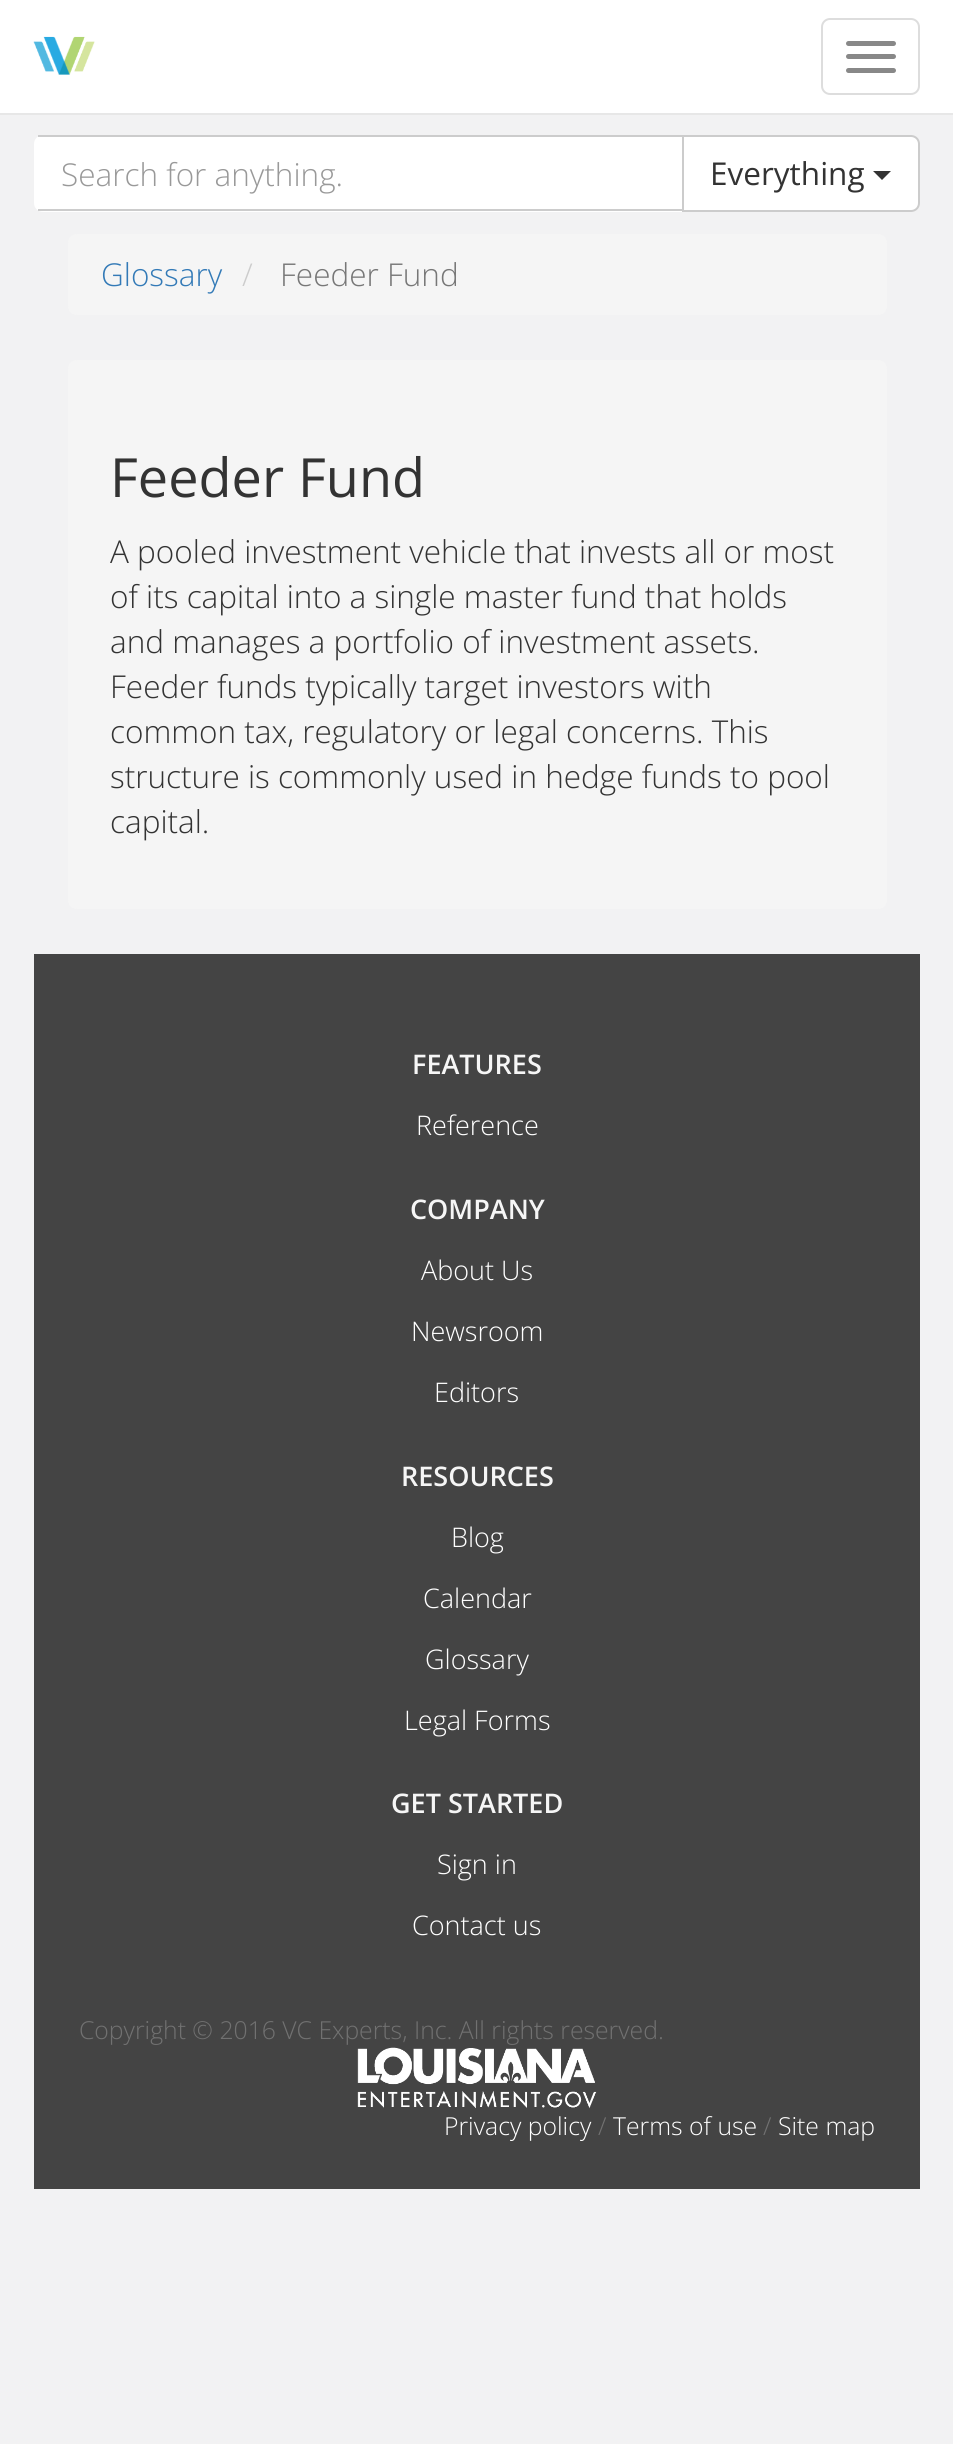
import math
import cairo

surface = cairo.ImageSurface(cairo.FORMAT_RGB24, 953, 2444)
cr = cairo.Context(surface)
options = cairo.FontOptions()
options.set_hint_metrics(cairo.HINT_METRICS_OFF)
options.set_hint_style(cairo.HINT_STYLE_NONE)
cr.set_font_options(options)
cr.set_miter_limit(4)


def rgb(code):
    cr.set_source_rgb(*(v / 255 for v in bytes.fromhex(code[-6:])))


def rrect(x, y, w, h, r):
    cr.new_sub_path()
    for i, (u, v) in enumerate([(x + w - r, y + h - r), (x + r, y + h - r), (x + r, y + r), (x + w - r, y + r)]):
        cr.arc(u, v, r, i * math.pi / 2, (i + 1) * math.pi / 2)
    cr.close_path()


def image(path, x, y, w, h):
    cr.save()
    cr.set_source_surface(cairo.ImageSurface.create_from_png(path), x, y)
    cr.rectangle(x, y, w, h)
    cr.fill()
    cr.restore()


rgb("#f2f2f3")
cr.paint()
rgb("#ffffff")
cr.rectangle(0, 0, 953, 113)
cr.fill()
rgb("#e7e7e7")
cr.rectangle(0, 113, 953, 2)
cr.fill()
image("img/1.png", 33, 36, 62, 39)
rrect(822, 19, 97, 75, 8)
rgb("#dddddd")
cr.stroke()
rgb("#888888")
rrect(846, 41, 50, 5, 2.5)
cr.fill()
rrect(846, 54, 50, 5, 2.5)
cr.fill()
rrect(846, 68, 50, 5, 2.5)
cr.fill()
rgb("#ffffff")
cr.new_path()
cr.move_to(683, 136)
cr.line_to(911, 136)
cr.curve_to(915.5, 136, 919, 139.5, 919, 144)
cr.line_to(919, 203)
cr.curve_to(919, 207.5, 915.5, 211, 911, 211)
cr.line_to(683, 211)
cr.close_path()
cr.fill_preserve()
rgb("#cccccc")
cr.stroke()
rgb("#ffffff")
cr.new_path()
cr.move_to(43, 135)
cr.line_to(684, 135)
cr.line_to(684, 212)
cr.line_to(43, 212)
cr.curve_to(38, 212, 34, 208, 34, 203)
cr.line_to(34, 144)
cr.curve_to(34, 139, 38, 135, 43, 135)
cr.close_path()
cr.fill()
for x, y, w, h, color in [
    (38, 135, 646, 2, "#cccccc"),
    (682, 135, 2, 77, "#cccccc"),
    (38, 209, 646, 2, "#cccccc"),
]:
    rgb(color)
    cr.rectangle(x, y, w, h)
    cr.fill()
rgb("#333333")
cr.new_path()
cr.move_to(873, 171)
cr.line_to(891, 171)
cr.line_to(882, 180)
cr.close_path()
cr.fill()
rgb("#f5f5f5")
rrect(68, 234, 819, 81, 9)
cr.fill()
rrect(68, 360, 819, 549, 9)
cr.fill()
rgb("#444444")
cr.rectangle(34, 954, 886, 1235)
cr.fill()
image("img/2.png", 357, 2047, 240, 62)
cr.select_font_face("Open Sans Light")
cr.set_font_size(31.5)
rgb("#999999")
cr.move_to(61, 186)
cr.show_text("Search for anything.")
cr.select_font_face("Open Sans")
rgb("#333333")
cr.move_to(710, 185)
cr.show_text("Everything")
cr.select_font_face("Open Sans Light")
rgb("#337ab7")
cr.move_to(101, 286)
cr.show_text("Glossary")
rgb("#cccccc")
cr.move_to(242, 286)
cr.show_text("/")
rgb("#777777")
cr.move_to(280, 286)
cr.show_text("Feeder Fund")
cr.select_font_face("Open Sans")
cr.set_font_size(54)
rgb("#333333")
cr.move_to(110, 497)
cr.show_text("Feeder Fund")
cr.select_font_face("Open Sans Light")
cr.set_font_size(31.5)
for x, y, s in [
    (110, 563, "A pooled investment vehicle that invests all or most"),
    (110, 608, "of its capital into a single master fund that holds"),
    (110, 653, "and manages a portfolio of investment assets."),
    (110, 698, "Feeder funds typically target investors with"),
    (110, 743, "common tax, regulatory or legal concerns. This"),
    (110, 788, "structure is commonly used in hedge funds to pool"),
    (110, 833, "capital."),
]:
    cr.move_to(x, y)
    cr.show_text(s)
cr.select_font_face("Open Sans SemiBold")
cr.set_font_size(27)
rgb("#f6f6f6")
cr.move_to(412, 1074)
cr.show_text("FEATURES")
cr.select_font_face("Open Sans Light")
rgb("#ffffff")
cr.move_to(416, 1135)
cr.show_text("Reference")
cr.select_font_face("Open Sans SemiBold")
rgb("#f6f6f6")
cr.move_to(410, 1219)
cr.show_text("COMPANY")
cr.select_font_face("Open Sans Light")
rgb("#ffffff")
for x, y, s in [
    (421, 1280, "About Us"),
    (411, 1341, "Newsroom"),
    (434, 1402, "Editors"),
]:
    cr.move_to(x, y)
    cr.show_text(s)
cr.select_font_face("Open Sans SemiBold")
rgb("#f6f6f6")
cr.move_to(401, 1486)
cr.show_text("RESOURCES")
cr.select_font_face("Open Sans Light")
rgb("#ffffff")
for x, y, s in [
    (451, 1547, "Blog"),
    (423, 1608, "Calendar"),
    (425, 1669, "Glossary"),
    (404, 1730, "Legal Forms"),
]:
    cr.move_to(x, y)
    cr.show_text(s)
cr.select_font_face("Open Sans SemiBold")
rgb("#f6f6f6")
cr.move_to(391, 1813)
cr.show_text("GET STARTED")
cr.select_font_face("Open Sans Light")
rgb("#ffffff")
cr.move_to(437, 1874)
cr.show_text("Sign in")
cr.move_to(412, 1935)
cr.show_text("Contact us")
cr.set_font_size(24.75)
rgb("#717171")
cr.move_to(79, 2039)
cr.show_text("Copyright © 2016 VC Experts, Inc. All rights reserved.")
rgb("#ffffff")
cr.move_to(444, 2135)
cr.show_text("Privacy policy")
rgb("#717171")
cr.move_to(598, 2135)
cr.show_text("/")
rgb("#ffffff")
cr.move_to(613, 2135)
cr.show_text("Terms of use")
rgb("#717171")
cr.move_to(763, 2135)
cr.show_text("/")
rgb("#ffffff")
cr.move_to(778, 2135)
cr.show_text("Site map")
surface.write_to_png("page.png")
